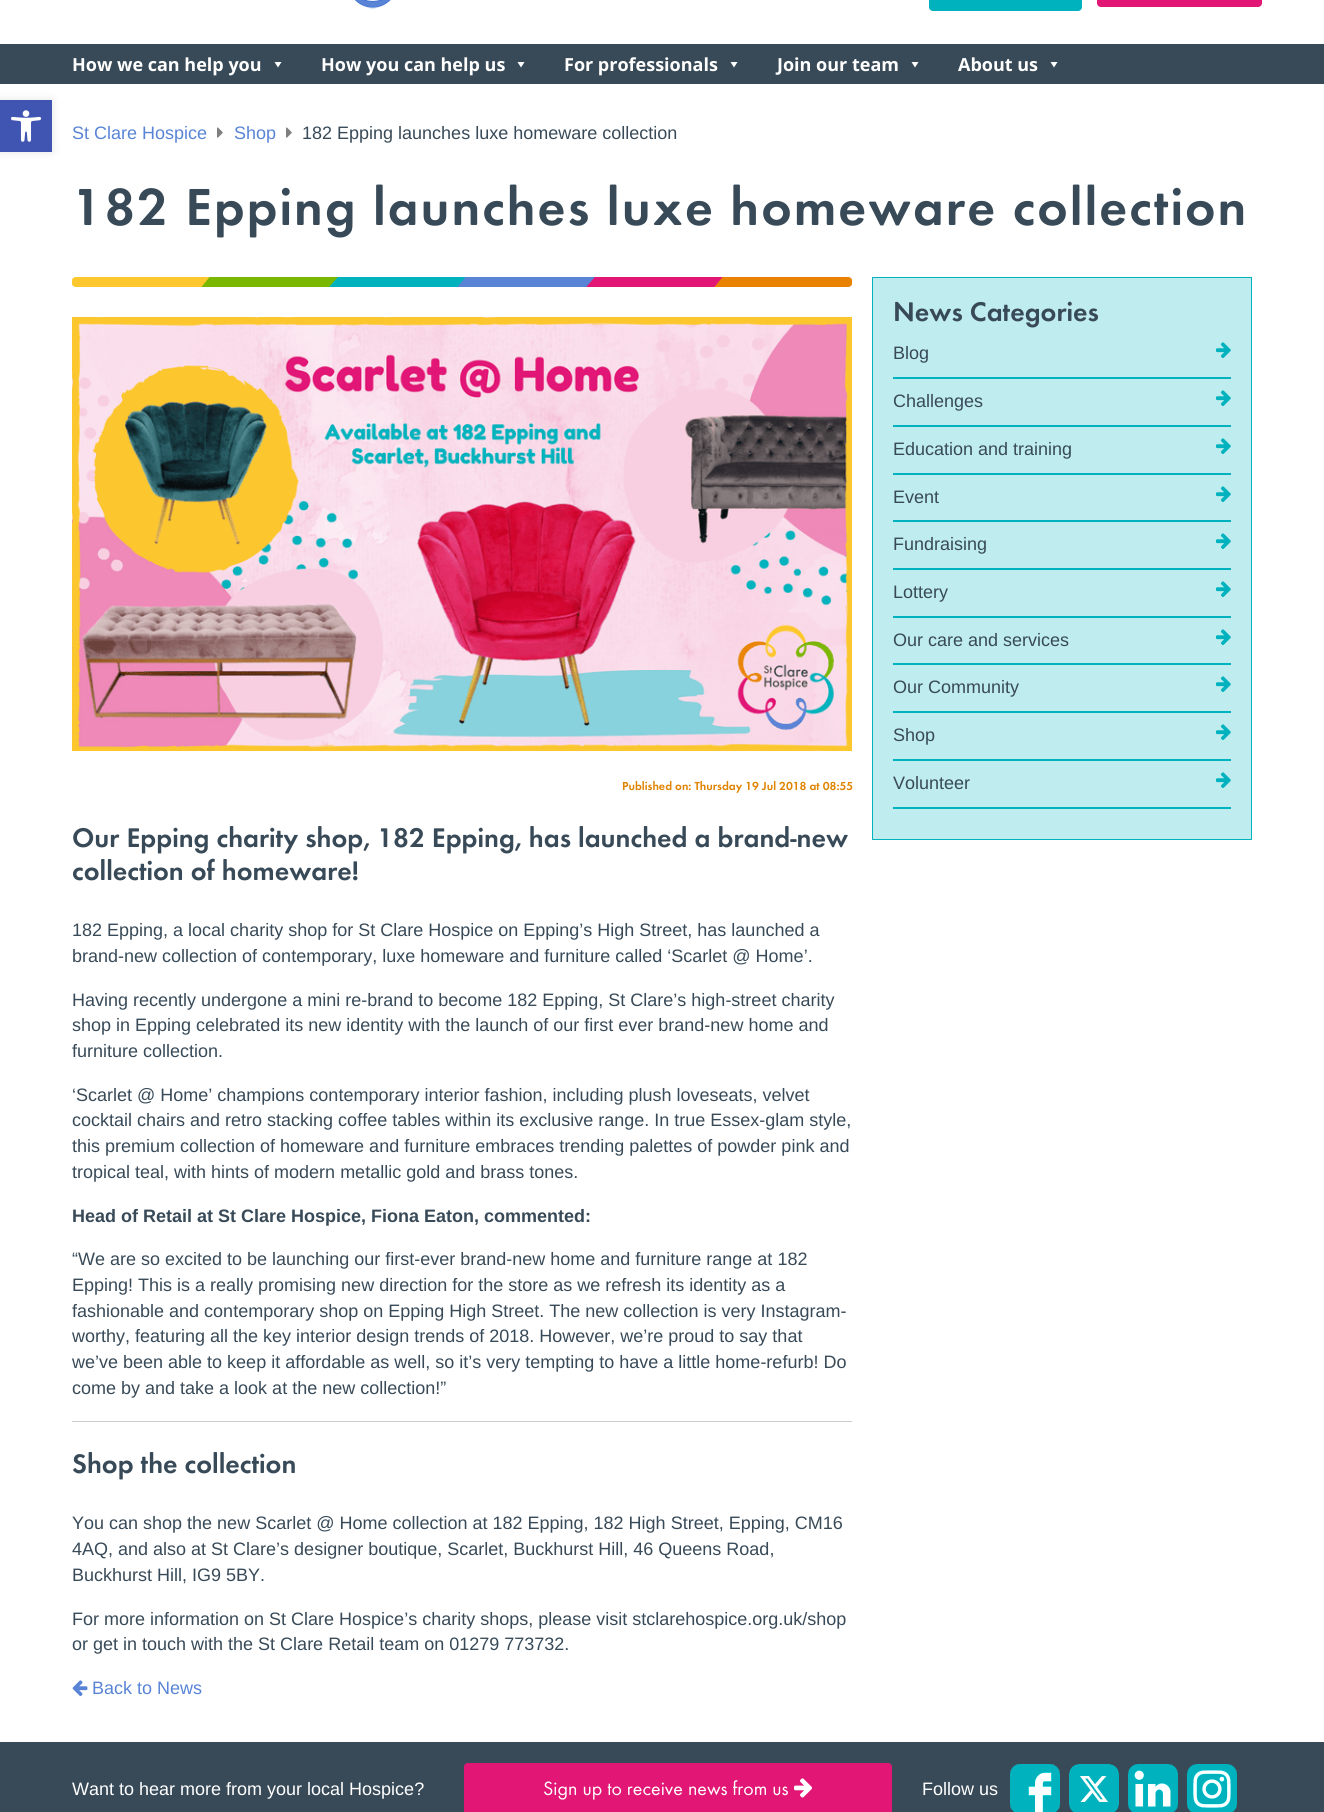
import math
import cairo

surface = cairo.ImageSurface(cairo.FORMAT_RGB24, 1324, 1812)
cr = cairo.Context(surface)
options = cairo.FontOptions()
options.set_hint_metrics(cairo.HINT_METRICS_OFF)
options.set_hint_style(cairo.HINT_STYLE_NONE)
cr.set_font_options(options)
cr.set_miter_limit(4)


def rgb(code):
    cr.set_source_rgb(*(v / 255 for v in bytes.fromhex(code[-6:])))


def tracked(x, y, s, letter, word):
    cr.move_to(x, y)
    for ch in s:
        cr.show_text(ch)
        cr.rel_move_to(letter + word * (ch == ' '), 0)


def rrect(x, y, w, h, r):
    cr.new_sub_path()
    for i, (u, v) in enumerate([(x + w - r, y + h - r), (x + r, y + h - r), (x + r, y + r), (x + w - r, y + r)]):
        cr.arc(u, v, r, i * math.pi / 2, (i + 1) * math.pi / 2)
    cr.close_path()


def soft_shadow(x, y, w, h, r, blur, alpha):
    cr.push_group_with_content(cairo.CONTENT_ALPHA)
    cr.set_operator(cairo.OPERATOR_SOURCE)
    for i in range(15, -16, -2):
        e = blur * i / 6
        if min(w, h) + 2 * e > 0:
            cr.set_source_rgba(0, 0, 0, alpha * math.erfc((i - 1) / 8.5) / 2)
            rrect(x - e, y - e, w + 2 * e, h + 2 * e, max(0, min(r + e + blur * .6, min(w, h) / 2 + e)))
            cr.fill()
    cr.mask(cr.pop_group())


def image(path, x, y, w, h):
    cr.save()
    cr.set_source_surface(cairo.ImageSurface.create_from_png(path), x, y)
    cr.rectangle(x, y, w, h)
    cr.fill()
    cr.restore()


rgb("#ffffff")
cr.paint()
rgb("#000000")
soft_shadow(0, 100, 52, 52, 0, 5, 0.1)
rgb("#4054b2")
cr.rectangle(0, 100, 52, 52)
cr.fill()
image("img/1.png", 11, 110, 30, 32)
image("img/2.png", 355, 0, 36, 9)
rgb("#00b2bd")
rrect(929, -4, 153, 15, 4)
cr.fill()
rgb("#e11675")
rrect(1097, -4, 165, 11, 4)
cr.fill()
rgb("#384a58")
cr.rectangle(0, 44, 1324, 40)
cr.fill()
rgb("#ffffff")
cr.new_path()
cr.move_to(281.5, 62)
cr.line_to(278, 67.5)
cr.line_to(274.5, 62)
cr.close_path()
cr.fill()
cr.new_path()
cr.move_to(524.5, 62)
cr.line_to(521, 67.5)
cr.line_to(517.5, 62)
cr.close_path()
cr.fill()
cr.new_path()
cr.move_to(737.5, 62)
cr.line_to(734, 67.5)
cr.line_to(730.5, 62)
cr.close_path()
cr.fill()
cr.new_path()
cr.move_to(918.5, 62)
cr.line_to(915, 67.5)
cr.line_to(911.5, 62)
cr.close_path()
cr.fill()
cr.new_path()
cr.move_to(1057.5, 62)
cr.line_to(1054, 67.5)
cr.line_to(1050.5, 62)
cr.close_path()
cr.fill()
image("img/3.png", 217, 127, 6, 11)
image("img/3.png", 286, 127, 6, 11)
rgb("#bfecee")
cr.rectangle(872.5, 277.5, 379, 562)
cr.fill_preserve()
rgb("#00b2bd")
cr.set_line_width(1)
cr.stroke()
cr.rectangle(893, 377, 338, 2)
cr.fill()
image("img/4.png", 1216, 342, 15, 16)
cr.rectangle(893, 425, 338, 2)
cr.fill()
image("img/4.png", 1216, 390, 15, 16)
cr.rectangle(893, 473, 338, 2)
cr.fill()
image("img/4.png", 1216, 438, 15, 16)
cr.rectangle(893, 520, 338, 2)
cr.fill()
image("img/4.png", 1216, 486, 15, 16)
cr.rectangle(893, 568, 338, 2)
cr.fill()
image("img/4.png", 1216, 533, 15, 16)
cr.rectangle(893, 616, 338, 2)
cr.fill()
image("img/4.png", 1216, 581, 15, 16)
cr.rectangle(893, 663, 338, 2)
cr.fill()
image("img/4.png", 1216, 629, 15, 16)
cr.rectangle(893, 711, 338, 2)
cr.fill()
image("img/4.png", 1216, 676, 15, 16)
cr.rectangle(893, 759, 338, 2)
cr.fill()
image("img/4.png", 1216, 724, 15, 16)
cr.rectangle(893, 807, 338, 2)
cr.fill()
image("img/4.png", 1216, 772, 15, 16)
image("img/5.png", 72, 277, 11, 10)
rgb("#fdc72e")
cr.rectangle(83, 277, 117, 10)
cr.fill()
cr.save()
cr.rectangle(200, 277, 11, 10)
cr.clip()
cr.new_path()
cr.move_to(196, 295)
cr.line_to(50, 295)
cr.line_to(71, 269)
cr.line_to(217, 269)
cr.close_path()
cr.fill()
rgb("#79b700")
cr.new_path()
cr.move_to(342, 295)
cr.line_to(195, 295)
cr.line_to(216, 269)
cr.line_to(363, 269)
cr.close_path()
cr.fill()
cr.restore()
rgb("#79b700")
cr.rectangle(211, 277, 117, 10)
cr.fill()
cr.save()
cr.rectangle(328, 277, 11, 10)
cr.clip()
cr.new_path()
cr.move_to(325, 293)
cr.line_to(193, 293)
cr.line_to(212, 271)
cr.line_to(344, 271)
cr.close_path()
cr.fill()
rgb("#00b2bd")
cr.new_path()
cr.move_to(456, 293)
cr.line_to(324, 293)
cr.line_to(343, 271)
cr.line_to(475, 271)
cr.close_path()
cr.fill()
cr.restore()
rgb("#00b2bd")
cr.rectangle(339, 277, 117, 10)
cr.fill()
cr.save()
cr.rectangle(456, 277, 12, 10)
cr.clip()
cr.new_path()
cr.move_to(452, 295)
cr.line_to(306, 295)
cr.line_to(327, 269)
cr.line_to(473, 269)
cr.close_path()
cr.fill()
rgb("#5984d6")
cr.new_path()
cr.move_to(598, 295)
cr.line_to(451, 295)
cr.line_to(472, 269)
cr.line_to(619, 269)
cr.close_path()
cr.fill()
cr.restore()
rgb("#5984d6")
cr.rectangle(468, 277, 117, 10)
cr.fill()
cr.save()
cr.rectangle(585, 277, 11, 10)
cr.clip()
cr.new_path()
cr.move_to(582, 293)
cr.line_to(450, 293)
cr.line_to(469, 271)
cr.line_to(601, 271)
cr.close_path()
cr.fill()
rgb("#e11675")
cr.new_path()
cr.move_to(713, 293)
cr.line_to(581, 293)
cr.line_to(600, 271)
cr.line_to(732, 271)
cr.close_path()
cr.fill()
cr.restore()
rgb("#e11675")
cr.rectangle(596, 277, 117, 10)
cr.fill()
cr.save()
cr.rectangle(713, 277, 11, 10)
cr.clip()
cr.new_path()
cr.move_to(709, 295)
cr.line_to(563, 295)
cr.line_to(584, 269)
cr.line_to(730, 269)
cr.close_path()
cr.fill()
rgb("#e88200")
cr.new_path()
cr.move_to(855, 295)
cr.line_to(708, 295)
cr.line_to(729, 269)
cr.line_to(876, 269)
cr.close_path()
cr.fill()
cr.restore()
rgb("#e88200")
cr.rectangle(724, 277, 117, 10)
cr.fill()
image("img/6.png", 841, 277, 11, 10)
image("img/7.png", 72, 317, 780, 434)
rgb("#cccccc")
cr.rectangle(72, 1421, 780, 1)
cr.fill()
image("img/8.png", 72, 1680, 16, 16)
rgb("#384a58")
cr.rectangle(0, 1742, 1324, 70)
cr.fill()
rgb("#e11675")
rrect(464, 1763, 428, 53, 4)
cr.fill()
image("img/9.png", 794, 1778, 18, 20)
image("img/10.png", 1010, 1764, 50, 48)
image("img/11.png", 1069, 1764, 50, 48)
image("img/12.png", 1128, 1764, 50, 48)
image("img/13.png", 1187, 1764, 50, 48)
cr.select_font_face("Open Sans", cairo.FONT_SLANT_NORMAL, cairo.FONT_WEIGHT_BOLD)
cr.set_font_size(18)
rgb("#ffffff")
for x, y, s in [
    (72, 71, "How we can help you"),
    (321, 71, "How you can help us"),
    (564, 71, "For professionals"),
    (777, 71, "Join our team"),
    (958, 71, "About us"),
]:
    cr.move_to(x, y)
    cr.show_text(s)
cr.select_font_face("Liberation Sans")
rgb("#5984d6")
cr.move_to(72, 139)
cr.show_text("St Clare Hospice")
cr.move_to(234, 139)
cr.show_text("Shop")
rgb("#384a58")
cr.move_to(302, 139)
cr.show_text("182 Epping launches luxe homeware collection")
cr.select_font_face("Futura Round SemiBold")
cr.set_font_size(54)
tracked(72, 225, "182 Epping launches luxe homeware collection", 2, 0)
cr.set_font_size(28)
cr.move_to(893, 321)
cr.show_text("News Categories")
cr.select_font_face("Liberation Sans")
cr.set_font_size(18)
for x, y, s in [
    (893, 359, "Blog"),
    (893, 407, "Challenges"),
    (893, 455, "Education and training"),
    (893, 503, "Event"),
    (893, 550, "Fundraising"),
    (893, 598, "Lottery"),
    (893, 646, "Our care and services"),
    (893, 693, "Our Community"),
    (893, 741, "Shop"),
    (893, 789, "Volunteer"),
]:
    cr.move_to(x, y)
    cr.show_text(s)
cr.select_font_face("Futura Round SemiBold")
cr.set_font_size(12.1)
rgb("#df8300")
cr.move_to(622, 790)
cr.show_text("Published on: Thursday 19 Jul 2018 at 08:55")
cr.set_font_size(28)
rgb("#384a58")
cr.move_to(72, 847)
cr.show_text("Our Epping charity shop, 182 Epping, has launched a brand-new")
cr.move_to(72, 880)
cr.show_text("collection of homeware!")
cr.select_font_face("Liberation Sans")
cr.set_font_size(18)
for x, y, s in [
    (72, 936, "182 Epping, a local charity shop for St Clare Hospice on Epping’s High Street, has launched a"),
    (72, 962, "brand-new collection of contemporary, luxe homeware and furniture called ‘Scarlet @ Home’."),
    (72, 1006, "Having recently undergone a mini re-brand to become 182 Epping, St Clare’s high-street charity"),
    (72, 1031, "shop in Epping celebrated its new identity with the launch of our first ever brand-new home and"),
    (72, 1057, "furniture collection."),
    (72, 1101, "‘Scarlet @ Home’ champions contemporary interior fashion, including plush loveseats, velvet"),
    (72, 1126, "cocktail chairs and retro stacking coffee tables within its exclusive range. In true Essex-glam style,"),
    (72, 1152, "this premium collection of homeware and furniture embraces trending palettes of powder pink and"),
    (72, 1178, "tropical teal, with hints of modern metallic gold and brass tones."),
]:
    cr.move_to(x, y)
    cr.show_text(s)
cr.select_font_face("Liberation Sans", cairo.FONT_SLANT_NORMAL, cairo.FONT_WEIGHT_BOLD)
cr.move_to(72, 1222)
cr.show_text("Head of Retail at St Clare Hospice, Fiona Eaton, commented:")
cr.select_font_face("Liberation Sans")
for x, y, s in [
    (72, 1265, "“We are so excited to be launching our first-ever brand-new home and furniture range at 182"),
    (72, 1291, "Epping! This is a really promising new direction for the store as we refresh its identity as a"),
    (72, 1317, "fashionable and contemporary shop on Epping High Street. The new collection is very Instagram-"),
    (72, 1342, "worthy, featuring all the key interior design trends of 2018. However, we’re proud to say that"),
    (72, 1368, "we’ve been able to keep it affordable as well, so it’s very tempting to have a little home-refurb! Do"),
    (72, 1394, "come by and take a look at the new collection!”"),
]:
    cr.move_to(x, y)
    cr.show_text(s)
cr.select_font_face("Futura Round SemiBold")
cr.set_font_size(28)
cr.move_to(72, 1473)
cr.show_text("Shop the collection")
cr.select_font_face("Liberation Sans")
cr.set_font_size(18)
for x, y, s in [
    (72, 1529, "You can shop the new Scarlet @ Home collection at 182 Epping, 182 High Street, Epping, CM16"),
    (72, 1555, "4AQ, and also at St Clare’s designer boutique, Scarlet, Buckhurst Hill, 46 Queens Road,"),
    (72, 1581, "Buckhurst Hill, IG9 5BY."),
    (72, 1625, "For more information on St Clare Hospice’s charity shops, please visit stclarehospice.org.uk/shop"),
    (72, 1650, "or get in touch with the St Clare Retail team on 01279 773732."),
]:
    cr.move_to(x, y)
    cr.show_text(s)
rgb("#5984d6")
cr.move_to(92, 1694)
cr.show_text("Back to News")
rgb("#ffffff")
cr.move_to(72, 1795)
cr.show_text("Want to hear more from your local Hospice?")
cr.select_font_face("Futura Round")
cr.set_font_size(20)
cr.move_to(543, 1795)
cr.show_text("Sign up to receive news from us")
cr.select_font_face("Liberation Sans")
cr.set_font_size(18)
cr.move_to(922, 1795)
cr.show_text("Follow us")
surface.write_to_png("page.png")
